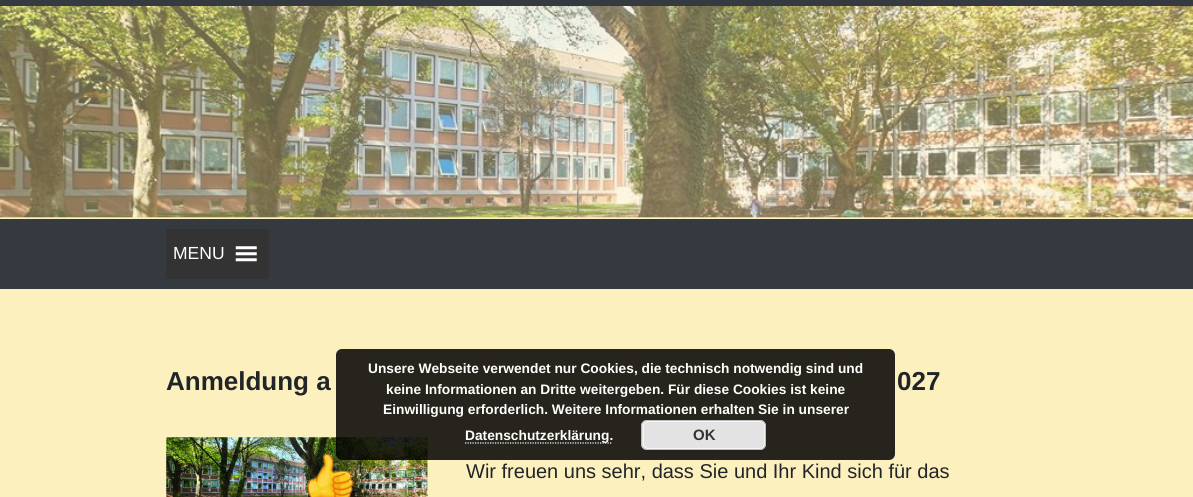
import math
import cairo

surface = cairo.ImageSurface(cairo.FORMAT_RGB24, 1193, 497)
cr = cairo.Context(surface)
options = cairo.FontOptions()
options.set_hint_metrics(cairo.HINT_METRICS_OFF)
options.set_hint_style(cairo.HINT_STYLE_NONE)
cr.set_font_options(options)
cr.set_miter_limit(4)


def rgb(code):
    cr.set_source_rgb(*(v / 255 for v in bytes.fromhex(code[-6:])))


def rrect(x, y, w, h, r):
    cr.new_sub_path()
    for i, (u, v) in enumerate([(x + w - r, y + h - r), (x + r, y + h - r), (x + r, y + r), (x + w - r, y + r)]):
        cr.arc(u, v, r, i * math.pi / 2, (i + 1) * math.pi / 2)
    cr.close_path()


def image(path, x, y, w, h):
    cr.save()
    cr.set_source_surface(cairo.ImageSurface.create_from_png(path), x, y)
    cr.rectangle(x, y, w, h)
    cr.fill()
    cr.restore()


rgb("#fcf0be")
cr.paint()
rgb("#343a40")
cr.rectangle(0, 0, 1193, 6)
cr.fill()
image("img/1.png", 0, 6, 1193, 212)
cr.rectangle(0, 219, 1193, 70)
cr.fill()
rgb("#333333")
rrect(166, 229, 103, 50, 2.5)
cr.fill()
image("img/2.png", 235, 246, 22, 16)
image("img/3.png", 166, 437, 262, 60)
cr.set_source_rgba(0, 0, 0, 0.85)
rrect(336, 349, 559, 111, 6)
cr.fill()
cr.new_path()
cr.move_to(465, 443)
cr.line_to(612.5, 443)
rgb("#ffffff")
cr.set_line_width(1.2)
cr.set_dash([1.25, 1.25])
cr.stroke()
rgb("#e3e3e3")
rrect(641, 420, 125, 30, 6)
cr.fill()
rrect(643.5, 421.5, 121, 27, 4.5)
rgb("#f6f6f6")
cr.set_line_width(1)
cr.set_dash([])
cr.stroke()
rrect(641.5, 420.5, 124, 29, 5.5)
rgb("#bbbbbb")
cr.stroke()
cr.select_font_face("Liberation Sans")
cr.set_font_size(17.5)
rgb("#ffffff")
cr.move_to(173, 259)
cr.show_text("MENU")
cr.select_font_face("Liberation Sans", cairo.FONT_SLANT_NORMAL, cairo.FONT_WEIGHT_BOLD)
cr.set_font_size(13.75)
for x, y, s in [
    (368, 373, "Unsere Webseite verwendet nur Cookies, die technisch notwendig sind und"),
    (386, 394, "keine Informationen an Dritte weitergeben. Für diese Cookies ist keine"),
    (383, 414, "Einwilligung erforderlich. Weitere Informationen erhalten Sie in unserer"),
    (465, 440, "Datenschutzerklärung."),
]:
    cr.move_to(x, y)
    cr.show_text(s)
cr.set_font_size(15)
rgb("#333333")
cr.move_to(693, 440)
cr.show_text("OK")
cr.set_font_size(26)
rgb("#212529")
cr.move_to(166, 390)
cr.show_text("Anmeldung a")
cr.move_to(897, 390)
cr.show_text("027")
cr.select_font_face("Liberation Sans")
cr.set_font_size(20)
cr.move_to(466, 478)
cr.show_text("Wir freuen uns sehr, dass Sie und Ihr Kind sich für das")
surface.write_to_png("page.png")
